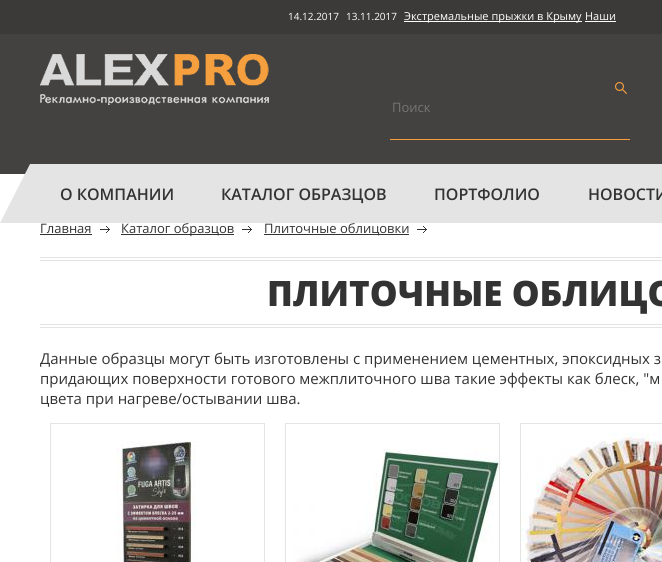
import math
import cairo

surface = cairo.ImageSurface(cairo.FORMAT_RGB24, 662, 562)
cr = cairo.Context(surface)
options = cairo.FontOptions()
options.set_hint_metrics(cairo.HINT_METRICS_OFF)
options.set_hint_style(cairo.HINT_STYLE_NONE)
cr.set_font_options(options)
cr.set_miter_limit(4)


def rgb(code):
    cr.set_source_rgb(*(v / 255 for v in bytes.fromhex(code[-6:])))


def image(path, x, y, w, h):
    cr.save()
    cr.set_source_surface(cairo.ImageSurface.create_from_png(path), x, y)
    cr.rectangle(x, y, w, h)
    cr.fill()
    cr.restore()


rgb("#ffffff")
cr.paint()
for x, y, w, h, color in [
    (0, 0, 662, 34, "#3b3a39"),
    (404, 21, 178, 1, "#ffffff"),
    (585, 21, 31, 1, "#ffffff"),
    (0, 34, 662, 140, "#434240"),
]:
    rgb(color)
    cr.rectangle(x, y, w, h)
    cr.fill()
image("img/1.png", 40, 54, 229, 51)
rgb("#f69e40")
cr.rectangle(390, 139, 240, 1)
cr.fill()
image("img/2.png", 615, 82, 12, 12)
rgb("#e4e4e4")
cr.rectangle(30, 164, 632, 59)
cr.fill()
cr.new_path()
cr.move_to(30, 223)
cr.line_to(0, 223)
cr.line_to(30, 164)
cr.close_path()
cr.fill()
rgb("#333333")
cr.rectangle(40, 234, 52, 1)
cr.fill()
image("img/3.png", 100, 226, 10, 7)
cr.rectangle(121, 234, 113, 1)
cr.fill()
image("img/3.png", 242, 226, 10, 7)
cr.rectangle(264, 234, 145, 1)
cr.fill()
image("img/3.png", 417, 226, 10, 7)
for x, y, w, h, color in [
    (40, 257, 622, 1, "#e4e4e4"),
    (40, 327, 622, 1, "#e4e4e4"),
    (40, 260, 622, 1, "#e4e4e4"),
    (40, 324, 622, 1, "#e4e4e4"),
    (50, 423, 215, 139, "#e4e4e4"),
    (51, 424, 213, 138, "#ffffff"),
]:
    rgb(color)
    cr.rectangle(x, y, w, h)
    cr.fill()
image("img/4.png", 116, 440, 80, 122)
rgb("#e4e4e4")
cr.rectangle(285, 423, 215, 139)
cr.fill()
rgb("#ffffff")
cr.rectangle(286, 424, 213, 138)
cr.fill()
image("img/5.png", 293, 449, 206, 113)
rgb("#e4e4e4")
cr.rectangle(520, 423, 142, 139)
cr.fill()
rgb("#ffffff")
cr.rectangle(521, 424, 141, 9)
cr.fill()
image("img/6.png", 521, 433, 141, 129)
cr.select_font_face("Open Sans")
cr.set_font_size(10)
cr.move_to(288, 20)
cr.show_text("14.12.2017")
cr.set_font_size(11)
cr.move_to(404, 20)
cr.show_text("Экстремальные прыжки в Крыму")
cr.set_font_size(10)
cr.move_to(346, 20)
cr.show_text("13.11.2017")
cr.set_font_size(11)
cr.move_to(585, 20)
cr.show_text("Наши")
cr.set_font_size(13)
rgb("#757575")
cr.move_to(392, 112)
cr.show_text("Поиск")
cr.select_font_face("Open Sans SemiBold")
cr.set_font_size(16)
rgb("#333333")
for x, y, s in [
    (60, 200, "О КОМПАНИИ"),
    (221, 200, "КАТАЛОГ ОБРАЗЦОВ"),
    (434, 200, "ПОРТФОЛИО"),
    (588, 200, "НОВОСТИ"),
]:
    cr.move_to(x, y)
    cr.show_text(s)
cr.select_font_face("Open Sans")
cr.set_font_size(13)
for x, y, s in [
    (40, 233, "Главная"),
    (121, 233, "Каталог образцов"),
    (264, 233, "Плиточные облицовки"),
]:
    cr.move_to(x, y)
    cr.show_text(s)
cr.select_font_face("Open Sans ExtraBold")
cr.set_font_size(35)
cr.move_to(267, 306)
cr.show_text("ПЛИТОЧНЫЕ ОБЛИЦО")
cr.select_font_face("Open Sans")
cr.set_font_size(15)
for x, y, s in [
    (40, 364, "Данные образцы могут быть изготовлены с применением цементных, эпоксидных з"),
    (40, 384, "придающих поверхности готового межплиточного шва такие эффекты как блеск, \"м"),
    (40, 404, "цвета при нагреве/остывании шва."),
]:
    cr.move_to(x, y)
    cr.show_text(s)
surface.write_to_png("page.png")
